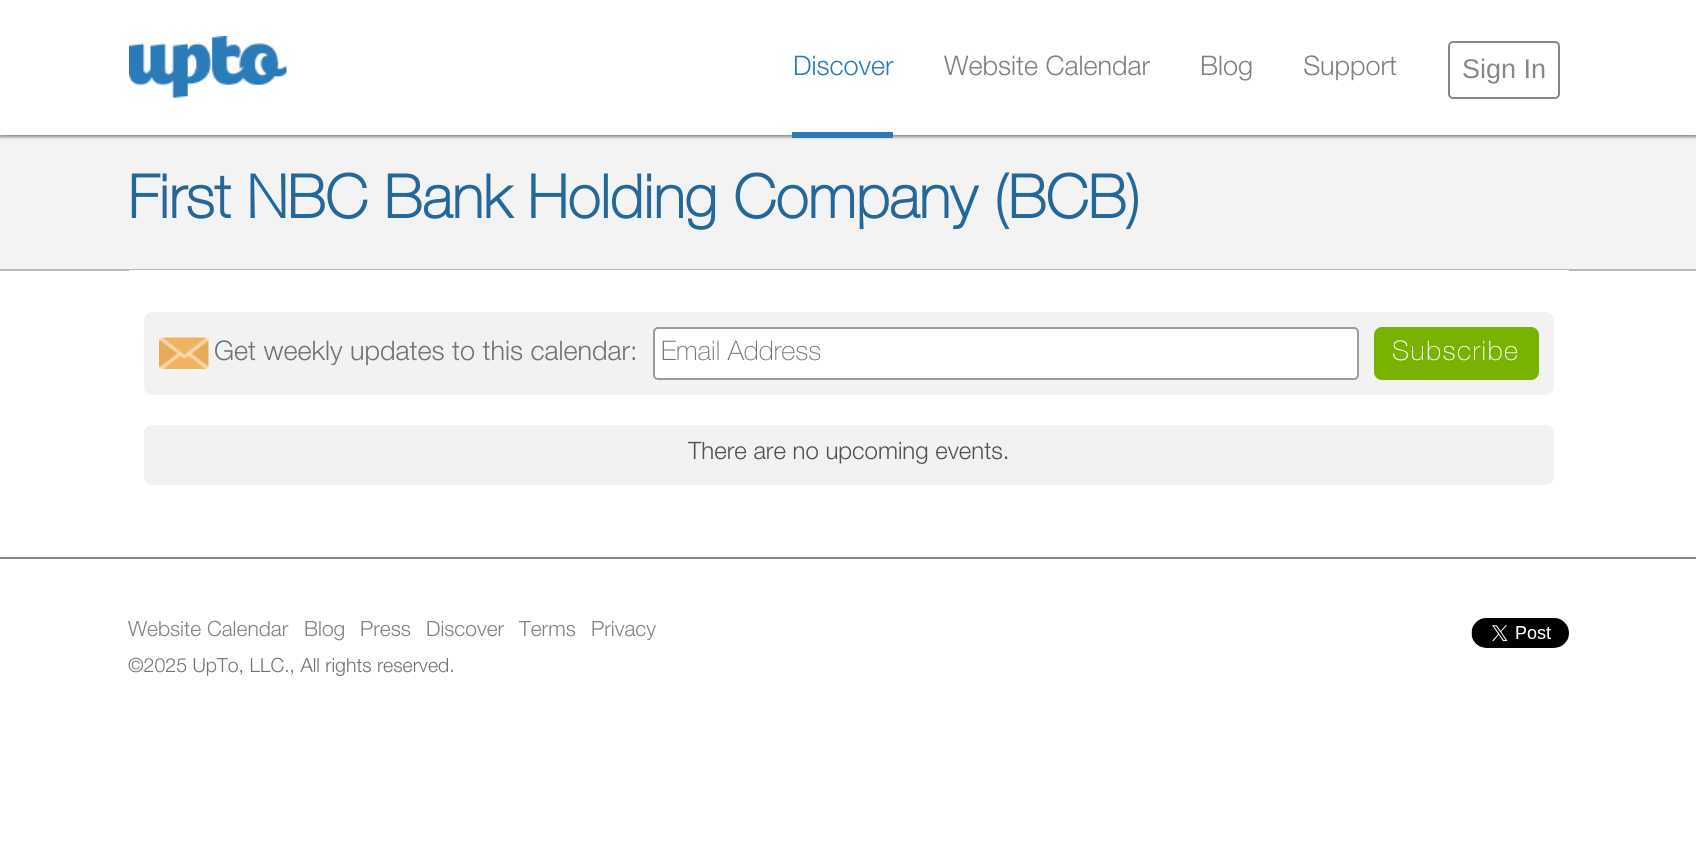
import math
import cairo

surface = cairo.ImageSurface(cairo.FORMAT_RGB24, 1696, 848)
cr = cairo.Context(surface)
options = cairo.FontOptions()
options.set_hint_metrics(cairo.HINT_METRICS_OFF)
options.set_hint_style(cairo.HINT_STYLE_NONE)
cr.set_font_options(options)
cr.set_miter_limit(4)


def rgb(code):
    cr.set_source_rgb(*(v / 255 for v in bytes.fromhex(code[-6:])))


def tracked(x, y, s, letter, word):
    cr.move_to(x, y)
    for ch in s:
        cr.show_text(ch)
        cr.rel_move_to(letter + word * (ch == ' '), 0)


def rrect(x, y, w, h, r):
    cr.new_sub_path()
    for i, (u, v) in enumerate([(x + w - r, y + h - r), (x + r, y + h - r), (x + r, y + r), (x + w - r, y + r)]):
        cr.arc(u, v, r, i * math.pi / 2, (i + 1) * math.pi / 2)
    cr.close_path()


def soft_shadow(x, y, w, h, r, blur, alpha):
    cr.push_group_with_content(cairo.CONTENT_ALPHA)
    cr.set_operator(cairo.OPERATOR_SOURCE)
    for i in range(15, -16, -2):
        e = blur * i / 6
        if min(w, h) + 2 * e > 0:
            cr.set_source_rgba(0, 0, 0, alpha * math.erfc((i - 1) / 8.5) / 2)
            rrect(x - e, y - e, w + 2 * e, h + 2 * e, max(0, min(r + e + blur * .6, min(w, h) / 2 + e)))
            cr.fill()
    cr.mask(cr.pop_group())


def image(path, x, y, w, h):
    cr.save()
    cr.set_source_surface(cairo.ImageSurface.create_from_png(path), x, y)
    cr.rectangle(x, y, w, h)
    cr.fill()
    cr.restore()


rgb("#ffffff")
cr.paint()
rgb("#f3f3f3")
cr.rectangle(0, 135, 1696, 134)
cr.fill()
cr.save()
cr.rectangle(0, 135, 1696, 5)
cr.clip()
rgb("#888888")
soft_shadow(0, 2, 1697, 135, 0, 1.5, 1)
cr.restore()
image("img/1.png", 129, 36, 158, 62)
rgb("#2b7bb8")
cr.rectangle(792, 132, 101, 6)
cr.fill()
rrect(1449, 42, 110, 56, 4)
rgb("#878787")
cr.stroke()
rgb("#b9b9b9")
cr.rectangle(0, 269, 1696, 2)
cr.fill()
rgb("#ffffff")
cr.rectangle(129, 270, 1440, 1)
cr.fill()
rgb("#f2f2f2")
rrect(144, 312, 1410, 83, 8)
cr.fill()
image("img/2.png", 159, 337, 50, 32)
rgb("#ffffff")
rrect(654, 328, 704, 51, 4)
cr.fill_preserve()
rgb("#9c9c9c")
cr.stroke()
rgb("#79b200")
rrect(1374, 327, 165, 53, 8)
cr.fill()
rgb("#f2f2f2")
rrect(144, 425, 1410, 60, 8)
cr.fill()
rgb("#878787")
cr.rectangle(0, 557, 1696, 2)
cr.fill()
image("img/3.png", 1471, 618, 98, 30)
cr.select_font_face("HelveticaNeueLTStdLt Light")
cr.set_font_size(27)
rgb("#2b7bb8")
cr.move_to(793, 75)
cr.show_text("Discover")
rgb("#818181")
for x, y, s in [
    (944, 75, "Website Calendar"),
    (1200, 75, "Blog"),
    (1303, 75, "Support"),
]:
    cr.move_to(x, y)
    cr.show_text(s)
cr.select_font_face("Liberation Sans")
rgb("#878787")
cr.move_to(1462, 78)
cr.show_text("Sign In")
cr.select_font_face("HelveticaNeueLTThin", cairo.FONT_SLANT_NORMAL, cairo.FONT_WEIGHT_BOLD)
cr.set_font_size(60)
rgb("#23679b")
cr.move_to(128, 218)
cr.show_text("First NBC Bank Holding Company (BCB)")
cr.select_font_face("HelveticaNeueLTStdLt Light")
cr.set_font_size(27)
rgb("#727272")
cr.move_to(214, 360)
cr.show_text("Get weekly updates to this calendar:")
cr.select_font_face("HelveticaNeueLTThin Thin")
cr.move_to(661, 360)
cr.show_text("Email Address")
rgb("#ffffff")
tracked(1392, 360, "Subscribe", 1.5, 0)
cr.select_font_face("HelveticaNeueLTStdLt Light")
cr.set_font_size(24)
rgb("#525252")
cr.move_to(688, 459)
cr.show_text("There are no upcoming events.")
cr.set_font_size(21)
rgb("#818181")
for x, y, s in [
    (128, 636, "Website Calendar"),
    (304, 636, "Blog"),
    (360, 636, "Press"),
    (426, 636, "Discover"),
    (519, 636, "Terms"),
    (591, 636, "Privacy"),
]:
    cr.move_to(x, y)
    cr.show_text(s)
cr.set_font_size(19.5)
rgb("#727272")
cr.move_to(128, 672)
cr.show_text("©2025 UpTo, LLC., All rights reserved.")
surface.write_to_png("page.png")
